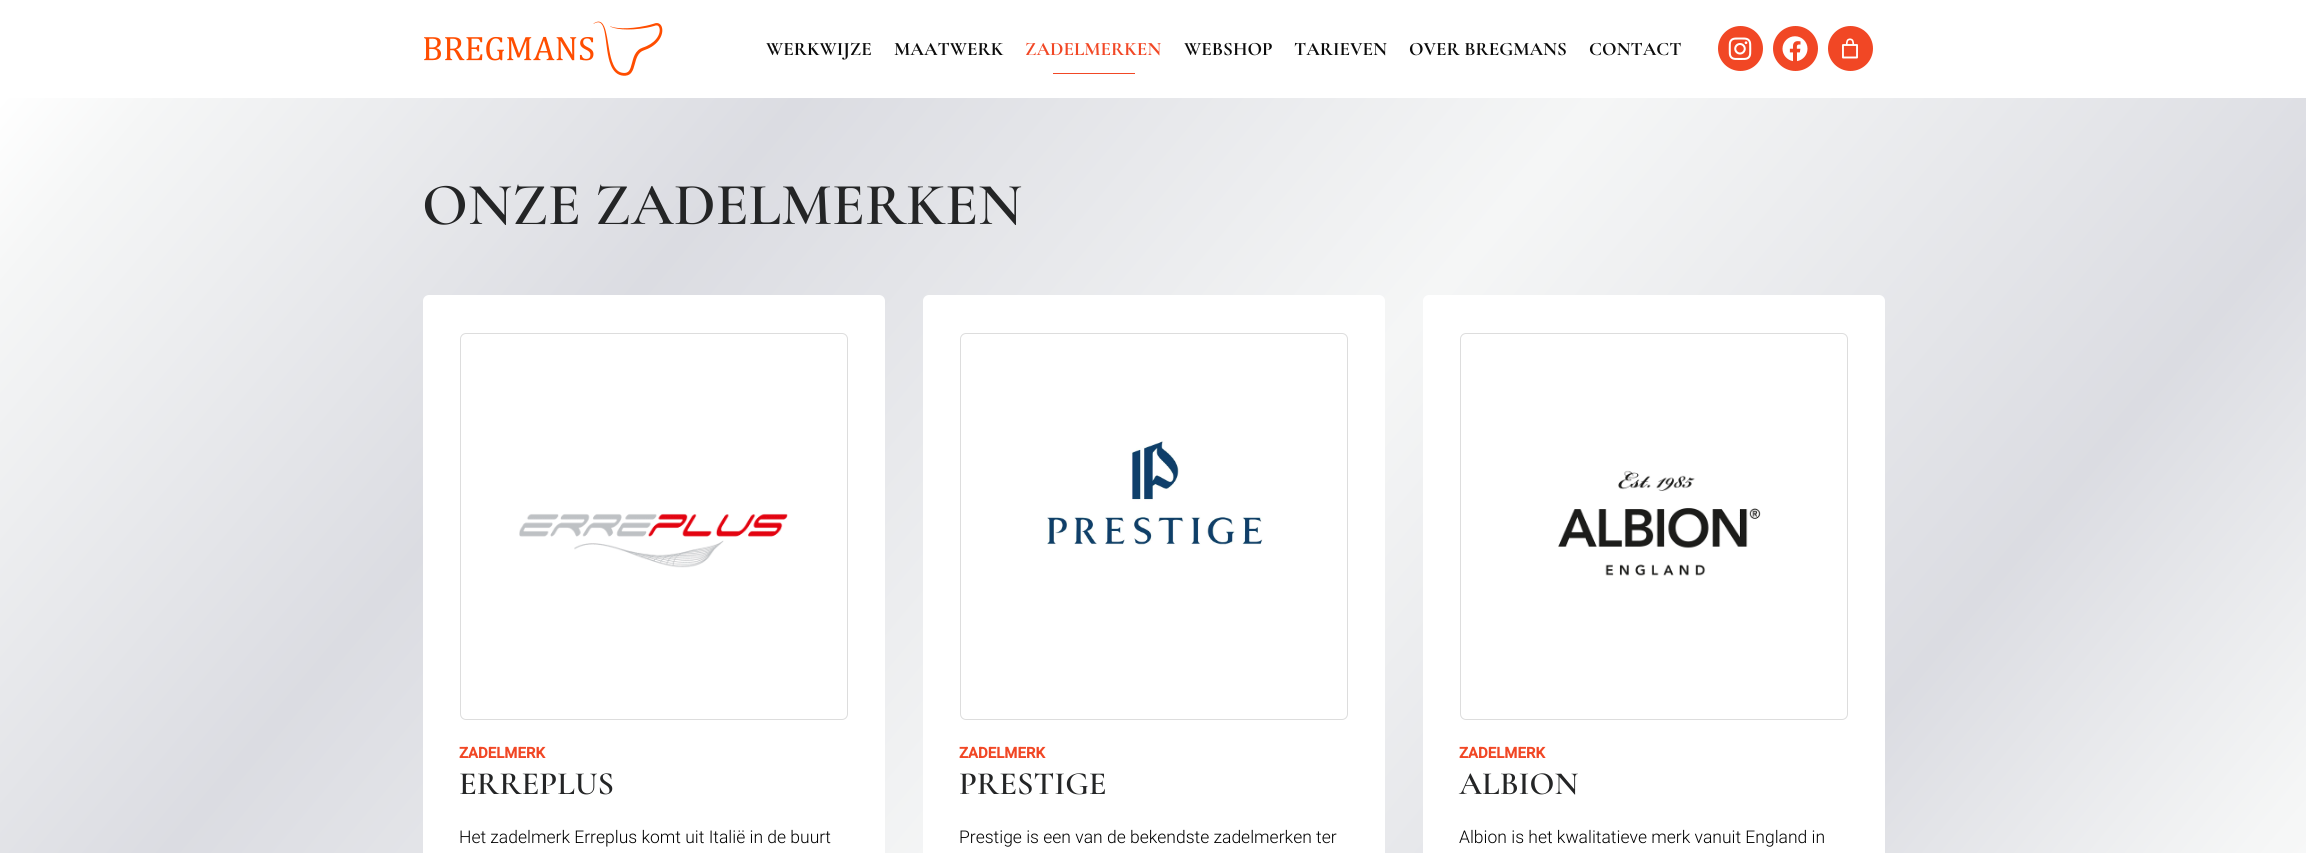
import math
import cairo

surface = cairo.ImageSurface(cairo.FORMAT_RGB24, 2306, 853)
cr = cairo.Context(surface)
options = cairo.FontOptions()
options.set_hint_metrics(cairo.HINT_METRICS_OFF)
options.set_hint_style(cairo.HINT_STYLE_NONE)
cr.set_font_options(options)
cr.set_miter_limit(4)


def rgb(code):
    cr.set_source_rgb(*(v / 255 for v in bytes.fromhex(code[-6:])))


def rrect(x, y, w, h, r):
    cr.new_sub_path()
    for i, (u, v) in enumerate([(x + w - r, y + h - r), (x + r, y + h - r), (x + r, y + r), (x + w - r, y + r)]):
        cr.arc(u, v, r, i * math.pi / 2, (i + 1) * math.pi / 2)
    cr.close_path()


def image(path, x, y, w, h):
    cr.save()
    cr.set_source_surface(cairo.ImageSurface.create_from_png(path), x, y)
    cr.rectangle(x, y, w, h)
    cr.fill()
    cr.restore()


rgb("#ffffff")
cr.paint()
image("img/1.png", 424, 21, 239, 55)
rgb("#f14725")
cr.rectangle(1053, 73, 82, 1)
cr.fill()
cr.arc(1740.5, 48.5, 22.5, 0, 2 * math.pi)
cr.fill()
image("img/2.png", 1728, 37, 24, 23)
cr.arc(1795.5, 48.5, 22.5, 0, 2 * math.pi)
cr.fill()
image("img/3.png", 1782, 36, 26, 26)
cr.arc(1850.5, 48.5, 22.5, 0, 2 * math.pi)
cr.fill()
image("img/4.png", 1842, 38, 16, 21)
gradient = cairo.LinearGradient(215, -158, 2092, 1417)
gradient.add_color_stop_rgba(0, 1, 1, 1, 1)
gradient.add_color_stop_rgba(0.05, 0.961, 0.965, 0.965, 1)
gradient.add_color_stop_rgba(0.25, 0.859, 0.863, 0.886, 1)
gradient.add_color_stop_rgba(0.5, 0.961, 0.965, 0.965, 1)
gradient.add_color_stop_rgba(0.75, 0.859, 0.863, 0.886, 1)
gradient.add_color_stop_rgba(0.9, 0.961, 0.965, 0.965, 1)
gradient.add_color_stop_rgba(1, 1, 1, 1, 1)
cr.set_source(gradient)
cr.rectangle(0, 98, 2306, 755)
cr.fill()
rgb("#ffffff")
rrect(423, 295, 462, 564, 6)
cr.fill()
rrect(460.5, 333.5, 387, 386, 5.5)
rgb("#dddddd")
cr.set_line_width(1)
cr.stroke()
image("img/5.png", 519, 513, 269, 55)
rgb("#ffffff")
rrect(923, 295, 462, 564, 6)
cr.fill()
rrect(960.5, 333.5, 387, 386, 5.5)
rgb("#dddddd")
cr.stroke()
image("img/6.png", 1047, 440, 216, 106)
rgb("#ffffff")
rrect(1423, 295, 462, 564, 6)
cr.fill()
rrect(1460.5, 333.5, 387, 386, 5.5)
rgb("#dddddd")
cr.stroke()
image("img/7.png", 1558, 470, 203, 106)
cr.select_font_face("Cormorant Garamond", cairo.FONT_SLANT_NORMAL, cairo.FONT_WEIGHT_BOLD)
cr.set_font_size(19)
rgb("#0c0c0c")
cr.move_to(766, 55)
cr.show_text("WERKWIJZE")
cr.move_to(894, 55)
cr.show_text("MAATWERK")
rgb("#f14725")
cr.move_to(1025, 55)
cr.show_text("ZADELMERKEN")
rgb("#0c0c0c")
for x, y, s in [
    (1184, 55, "WEBSHOP"),
    (1294, 55, "TARIEVEN"),
    (1409, 55, "OVER BREGMANS"),
    (1589, 55, "CONTACT"),
]:
    cr.move_to(x, y)
    cr.show_text(s)
cr.select_font_face("Cormorant Garamond SemiBold")
cr.set_font_size(60)
rgb("#242526")
cr.move_to(422, 224)
cr.show_text("ONZE ZADELMERKEN")
cr.select_font_face("Roboto", cairo.FONT_SLANT_NORMAL, cairo.FONT_WEIGHT_BOLD)
cr.set_font_size(15)
rgb("#f14725")
cr.move_to(459, 758)
cr.show_text("ZADELMERK")
cr.select_font_face("Cormorant Garamond SemiBold")
cr.set_font_size(32.5)
rgb("#242526")
cr.move_to(459, 794)
cr.show_text("ERREPLUS")
cr.select_font_face("Roboto Light")
cr.set_font_size(17.5)
rgb("#000000")
cr.move_to(459, 843)
cr.show_text("Het zadelmerk Erreplus komt uit Italië in de buurt")
cr.select_font_face("Roboto", cairo.FONT_SLANT_NORMAL, cairo.FONT_WEIGHT_BOLD)
cr.set_font_size(15)
rgb("#f14725")
cr.move_to(959, 758)
cr.show_text("ZADELMERK")
cr.select_font_face("Cormorant Garamond SemiBold")
cr.set_font_size(32.5)
rgb("#242526")
cr.move_to(959, 794)
cr.show_text("PRESTIGE")
cr.select_font_face("Roboto Light")
cr.set_font_size(17.5)
rgb("#000000")
cr.move_to(959, 843)
cr.show_text("Prestige is een van de bekendste zadelmerken ter")
cr.select_font_face("Roboto", cairo.FONT_SLANT_NORMAL, cairo.FONT_WEIGHT_BOLD)
cr.set_font_size(15)
rgb("#f14725")
cr.move_to(1459, 758)
cr.show_text("ZADELMERK")
cr.select_font_face("Cormorant Garamond SemiBold")
cr.set_font_size(32.5)
rgb("#242526")
cr.move_to(1459, 794)
cr.show_text("ALBION")
cr.select_font_face("Roboto Light")
cr.set_font_size(17.5)
rgb("#000000")
cr.move_to(1459, 843)
cr.show_text("Albion is het kwalitatieve merk vanuit England in")
surface.write_to_png("page.png")
